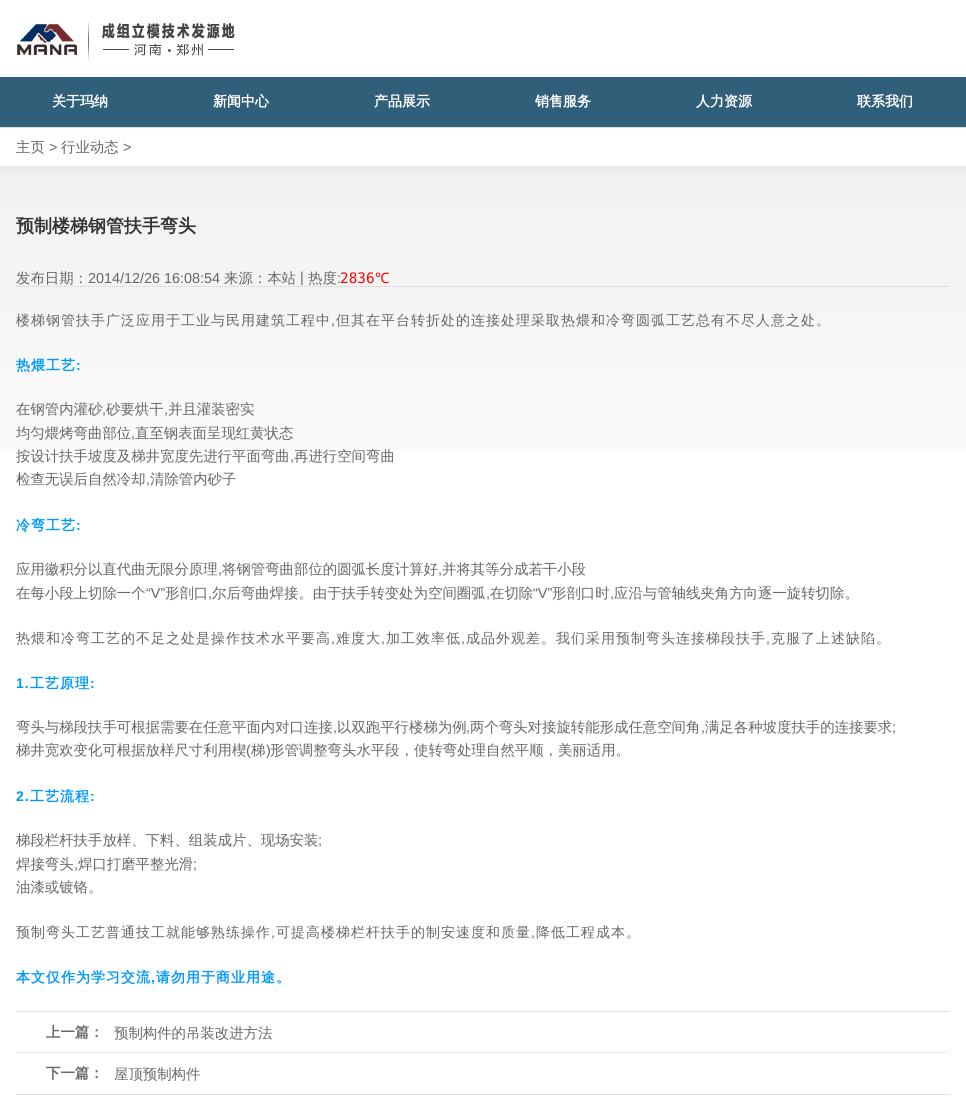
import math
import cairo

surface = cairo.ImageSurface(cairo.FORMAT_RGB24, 966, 1120)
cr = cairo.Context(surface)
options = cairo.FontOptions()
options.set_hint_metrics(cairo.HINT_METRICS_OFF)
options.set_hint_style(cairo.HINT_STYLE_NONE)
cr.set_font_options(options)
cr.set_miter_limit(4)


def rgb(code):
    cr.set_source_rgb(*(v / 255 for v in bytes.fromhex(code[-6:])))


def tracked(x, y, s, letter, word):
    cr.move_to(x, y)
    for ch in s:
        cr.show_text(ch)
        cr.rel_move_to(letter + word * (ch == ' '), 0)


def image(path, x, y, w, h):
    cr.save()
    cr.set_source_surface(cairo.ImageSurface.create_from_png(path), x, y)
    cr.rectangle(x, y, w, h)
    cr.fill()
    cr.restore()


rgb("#ffffff")
cr.paint()
image("img/1.png", 17, 23, 218, 38)
rgb("#305f7a")
cr.rectangle(0, 77, 966, 50)
cr.fill()
rgb("#dddddd")
cr.rectangle(0, 127, 966, 1)
cr.fill()
image("img/2.png", 0, 166, 966, 286)
cr.new_path()
cr.move_to(16, 286.5)
cr.line_to(950, 286.5)
rgb("#cccccc")
cr.set_line_width(1)
cr.set_dash([1, 1])
cr.stroke()
rgb("#dddddd")
cr.rectangle(16, 1011, 934, 1)
cr.fill()
cr.rectangle(16, 1094, 934, 1)
cr.fill()
cr.new_path()
cr.move_to(16, 1052.5)
cr.line_to(950, 1052.5)
cr.stroke()
cr.select_font_face("WenQuanYi Zen Hei", cairo.FONT_SLANT_NORMAL, cairo.FONT_WEIGHT_BOLD)
cr.set_font_size(14)
rgb("#ffffff")
for x, y, s in [
    (52, 106, "关于玛纳"),
    (213, 106, "新闻中心"),
    (374, 106, "产品展示"),
    (535, 106, "销售服务"),
    (696, 106, "人力资源"),
    (857, 106, "联系我们"),
]:
    cr.move_to(x, y)
    cr.show_text(s)
cr.select_font_face("WenQuanYi Zen Hei Medium")
cr.set_font_size(14.4)
rgb("#666666")
cr.move_to(16, 152)
cr.show_text("主页")
cr.select_font_face("Liberation Sans")
cr.move_to(49, 152)
cr.show_text(">")
cr.select_font_face("WenQuanYi Zen Hei Medium")
cr.move_to(61, 152)
cr.show_text("行业动态")
cr.select_font_face("Liberation Sans")
cr.move_to(123, 152)
cr.show_text(">")
cr.select_font_face("WenQuanYi Zen Hei", cairo.FONT_SLANT_NORMAL, cairo.FONT_WEIGHT_BOLD)
cr.set_font_size(18)
rgb("#333333")
cr.move_to(16, 232)
cr.show_text("预制楼梯钢管扶手弯头")
cr.select_font_face("WenQuanYi Zen Hei Medium")
cr.set_font_size(14.4)
rgb("#666666")
cr.move_to(16, 283)
cr.show_text("发布日期：")
cr.select_font_face("Liberation Sans")
cr.move_to(88, 283)
cr.show_text("2014/12/26 16:08:54")
cr.select_font_face("WenQuanYi Zen Hei Medium")
cr.move_to(224, 283)
cr.show_text("来源：本站")
cr.select_font_face("Liberation Sans")
cr.move_to(300, 282)
cr.show_text("|")
cr.select_font_face("WenQuanYi Zen Hei Medium")
cr.move_to(308, 283)
cr.show_text("热度")
cr.select_font_face("Liberation Sans")
cr.move_to(337, 283)
cr.show_text(":")
cr.select_font_face("DejaVu Sans Mono")
rgb("#ff0000")
cr.move_to(340, 283)
cr.show_text("2836")
cr.select_font_face("Noto Sans")
cr.move_to(375, 283)
cr.show_text("℃")
cr.select_font_face("WenQuanYi Zen Hei Medium")
cr.set_font_size(14)
rgb("#666666")
tracked(16, 325, "楼梯钢管扶手广泛应用于工业与民用建筑工程中", 1, 0)
cr.select_font_face("Liberation Sans")
tracked(331, 325, ",", 1, 0)
cr.select_font_face("WenQuanYi Zen Hei Medium")
tracked(336, 325, "但其在平台转折处的连接处理采取热煨和冷弯圆弧工艺总有不尽人意之处。", 1, 0)
cr.select_font_face("WenQuanYi Zen Hei", cairo.FONT_SLANT_NORMAL, cairo.FONT_WEIGHT_BOLD)
rgb("#0099ff")
tracked(16, 370, "热煨工艺", 1, 0)
cr.select_font_face("Liberation Sans", cairo.FONT_SLANT_NORMAL, cairo.FONT_WEIGHT_BOLD)
tracked(76, 370, ":", 1, 0)
cr.select_font_face("WenQuanYi Zen Hei Medium")
cr.set_font_size(14.4)
rgb("#666666")
cr.move_to(16, 414)
cr.show_text("在钢管内灌砂")
cr.select_font_face("Liberation Sans")
cr.move_to(102, 414)
cr.show_text(",")
cr.select_font_face("WenQuanYi Zen Hei Medium")
cr.move_to(106, 414)
cr.show_text("砂要烘干")
cr.select_font_face("Liberation Sans")
cr.move_to(164, 414)
cr.show_text(",")
cr.select_font_face("WenQuanYi Zen Hei Medium")
cr.move_to(168, 414)
cr.show_text("并且灌装密实")
cr.move_to(16, 438)
cr.show_text("均匀煨烤弯曲部位")
cr.select_font_face("Liberation Sans")
cr.move_to(131, 438)
cr.show_text(",")
cr.select_font_face("WenQuanYi Zen Hei Medium")
cr.move_to(135, 438)
cr.show_text("直至钢表面呈现红黄状态")
cr.move_to(16, 461)
cr.show_text("按设计扶手坡度及梯井宽度先进行平面弯曲")
cr.select_font_face("Liberation Sans")
cr.move_to(290, 461)
cr.show_text(",")
cr.select_font_face("WenQuanYi Zen Hei Medium")
cr.move_to(294, 461)
cr.show_text("再进行空间弯曲")
cr.move_to(16, 484)
cr.show_text("检查无误后自然冷却")
cr.select_font_face("Liberation Sans")
cr.move_to(146, 484)
cr.show_text(",")
cr.select_font_face("WenQuanYi Zen Hei Medium")
cr.move_to(150, 484)
cr.show_text("清除管内砂子")
cr.select_font_face("WenQuanYi Zen Hei", cairo.FONT_SLANT_NORMAL, cairo.FONT_WEIGHT_BOLD)
cr.set_font_size(14)
rgb("#0099ff")
tracked(16, 530, "冷弯工艺", 1, 0)
cr.select_font_face("Liberation Sans", cairo.FONT_SLANT_NORMAL, cairo.FONT_WEIGHT_BOLD)
tracked(76, 530, ":", 1, 0)
cr.select_font_face("WenQuanYi Zen Hei Medium")
cr.set_font_size(14.4)
rgb("#666666")
cr.move_to(16, 574)
cr.show_text("应用徽积分以直代曲无限分原理")
cr.select_font_face("Liberation Sans")
cr.move_to(218, 574)
cr.show_text(",")
cr.select_font_face("WenQuanYi Zen Hei Medium")
cr.move_to(222, 574)
cr.show_text("将钢管弯曲部位的圆弧长度计算好")
cr.select_font_face("Liberation Sans")
cr.move_to(438, 574)
cr.show_text(",")
cr.select_font_face("WenQuanYi Zen Hei Medium")
cr.move_to(442, 574)
cr.show_text("并将其等分成若干小段")
cr.move_to(16, 598)
cr.show_text("在每小段上切除一个")
cr.select_font_face("Liberation Sans")
cr.move_to(146, 598)
cr.show_text("“V”")
cr.select_font_face("WenQuanYi Zen Hei Medium")
cr.move_to(165, 598)
cr.show_text("形剖口")
cr.select_font_face("Liberation Sans")
cr.move_to(208, 598)
cr.show_text(",")
cr.select_font_face("WenQuanYi Zen Hei Medium")
cr.move_to(212, 598)
cr.show_text("尔后弯曲焊接。由于扶手转变处为空间圈弧")
cr.select_font_face("Liberation Sans")
cr.move_to(486, 598)
cr.show_text(",")
cr.select_font_face("WenQuanYi Zen Hei Medium")
cr.move_to(490, 598)
cr.show_text("在切除")
cr.select_font_face("Liberation Sans")
cr.move_to(533, 598)
cr.show_text("“V”")
cr.select_font_face("WenQuanYi Zen Hei Medium")
cr.move_to(552, 598)
cr.show_text("形剖口时")
cr.select_font_face("Liberation Sans")
cr.move_to(610, 598)
cr.show_text(",")
cr.select_font_face("WenQuanYi Zen Hei Medium")
cr.move_to(614, 598)
cr.show_text("应沿与管轴线夹角方向逐一旋转切除。")
cr.set_font_size(14)
tracked(16, 643, "热煨和冷弯工艺的不足之处是操作技术水平要高", 1, 0)
cr.select_font_face("Liberation Sans")
tracked(331, 643, ",", 1, 0)
cr.select_font_face("WenQuanYi Zen Hei Medium")
tracked(336, 643, "难度大", 1, 0)
cr.select_font_face("Liberation Sans")
tracked(381, 643, ",", 1, 0)
cr.select_font_face("WenQuanYi Zen Hei Medium")
tracked(386, 643, "加工效率低", 1, 0)
cr.select_font_face("Liberation Sans")
tracked(461, 643, ",", 1, 0)
cr.select_font_face("WenQuanYi Zen Hei Medium")
tracked(466, 643, "成品外观差。我们采用预制弯头连接梯段扶手", 1, 0)
cr.select_font_face("Liberation Sans")
tracked(766, 643, ",", 1, 0)
cr.select_font_face("WenQuanYi Zen Hei Medium")
tracked(771, 643, "克服了上述缺陷。", 1, 0)
cr.select_font_face("Liberation Sans", cairo.FONT_SLANT_NORMAL, cairo.FONT_WEIGHT_BOLD)
rgb("#0099ff")
tracked(16, 688, "1.", 1, 0)
cr.select_font_face("WenQuanYi Zen Hei", cairo.FONT_SLANT_NORMAL, cairo.FONT_WEIGHT_BOLD)
tracked(30, 688, "工艺原理", 1, 0)
cr.select_font_face("Liberation Sans", cairo.FONT_SLANT_NORMAL, cairo.FONT_WEIGHT_BOLD)
tracked(90, 688, ":", 1, 0)
cr.select_font_face("WenQuanYi Zen Hei Medium")
cr.set_font_size(14.4)
rgb("#666666")
cr.move_to(16, 732)
cr.show_text("弯头与梯段扶手可根据需要在任意平面内对口连接")
cr.select_font_face("Liberation Sans")
cr.move_to(333, 732)
cr.show_text(",")
cr.select_font_face("WenQuanYi Zen Hei Medium")
cr.move_to(337, 732)
cr.show_text("以双跑平行楼梯为例")
cr.select_font_face("Liberation Sans")
cr.move_to(466, 732)
cr.show_text(",")
cr.select_font_face("WenQuanYi Zen Hei Medium")
cr.move_to(470, 732)
cr.show_text("两个弯头对接旋转能形成任意空间角")
cr.select_font_face("Liberation Sans")
cr.move_to(701, 732)
cr.show_text(",")
cr.select_font_face("WenQuanYi Zen Hei Medium")
cr.move_to(705, 732)
cr.show_text("满足各种坡度扶手的连接要求")
cr.select_font_face("Liberation Sans")
cr.move_to(892, 732)
cr.show_text(";")
cr.select_font_face("WenQuanYi Zen Hei Medium")
cr.move_to(16, 755)
cr.show_text("梯井宽欢变化可根据放样尺寸利用楔")
cr.select_font_face("Liberation Sans")
cr.move_to(246, 755)
cr.show_text("(")
cr.select_font_face("WenQuanYi Zen Hei Medium")
cr.move_to(251, 755)
cr.show_text("梯")
cr.select_font_face("Liberation Sans")
cr.move_to(266, 755)
cr.show_text(")")
cr.select_font_face("WenQuanYi Zen Hei Medium")
cr.move_to(270, 755)
cr.show_text("形管调整弯头水平段，使转弯处理自然平顺，美丽适用。")
cr.select_font_face("Liberation Sans", cairo.FONT_SLANT_NORMAL, cairo.FONT_WEIGHT_BOLD)
cr.set_font_size(14)
rgb("#0099ff")
tracked(16, 801, "2.", 1, 0)
cr.select_font_face("WenQuanYi Zen Hei", cairo.FONT_SLANT_NORMAL, cairo.FONT_WEIGHT_BOLD)
tracked(30, 801, "工艺流程", 1, 0)
cr.select_font_face("Liberation Sans", cairo.FONT_SLANT_NORMAL, cairo.FONT_WEIGHT_BOLD)
tracked(90, 801, ":", 1, 0)
cr.select_font_face("WenQuanYi Zen Hei Medium")
cr.set_font_size(14.4)
rgb("#666666")
cr.move_to(16, 845)
cr.show_text("梯段栏杆扶手放样、下料、组装成片、现场安装")
cr.select_font_face("Liberation Sans")
cr.move_to(318, 845)
cr.show_text(";")
cr.select_font_face("WenQuanYi Zen Hei Medium")
cr.move_to(16, 869)
cr.show_text("焊接弯头")
cr.select_font_face("Liberation Sans")
cr.move_to(74, 869)
cr.show_text(",")
cr.select_font_face("WenQuanYi Zen Hei Medium")
cr.move_to(78, 869)
cr.show_text("焊口打磨平整光滑")
cr.select_font_face("Liberation Sans")
cr.move_to(193, 869)
cr.show_text(";")
cr.select_font_face("WenQuanYi Zen Hei Medium")
cr.move_to(16, 892)
cr.show_text("油漆或镀铬。")
cr.set_font_size(14)
tracked(16, 937, "预制弯头工艺普通技工就能够熟练操作", 1, 0)
cr.select_font_face("Liberation Sans")
tracked(271, 937, ",", 1, 0)
cr.select_font_face("WenQuanYi Zen Hei Medium")
tracked(276, 937, "可提高楼梯栏杆扶手的制安速度和质量", 1, 0)
cr.select_font_face("Liberation Sans")
tracked(531, 937, ",", 1, 0)
cr.select_font_face("WenQuanYi Zen Hei Medium")
tracked(536, 937, "降低工程成本。", 1, 0)
cr.select_font_face("WenQuanYi Zen Hei", cairo.FONT_SLANT_NORMAL, cairo.FONT_WEIGHT_BOLD)
rgb("#0099ff")
tracked(16, 982, "本文仅作为学习交流", 1, 0)
cr.select_font_face("Liberation Sans", cairo.FONT_SLANT_NORMAL, cairo.FONT_WEIGHT_BOLD)
tracked(151, 982, ",", 1, 0)
cr.select_font_face("WenQuanYi Zen Hei", cairo.FONT_SLANT_NORMAL, cairo.FONT_WEIGHT_BOLD)
tracked(156, 982, "请勿用于商业用途。", 1, 0)
cr.set_font_size(14.4)
rgb("#666666")
cr.move_to(46, 1037)
cr.show_text("上一篇：")
cr.save()
cr.rectangle(114, 1013, 601, 40)
cr.clip()
cr.select_font_face("WenQuanYi Zen Hei Medium")
cr.move_to(114, 1038)
cr.show_text("预制构件的吊装改进方法")
cr.restore()
cr.move_to(46, 1078)
cr.show_text("下一篇：")
cr.select_font_face("WenQuanYi Zen Hei Medium")
cr.move_to(114, 1079)
cr.show_text("屋顶预制构件")
surface.write_to_png("page.png")
